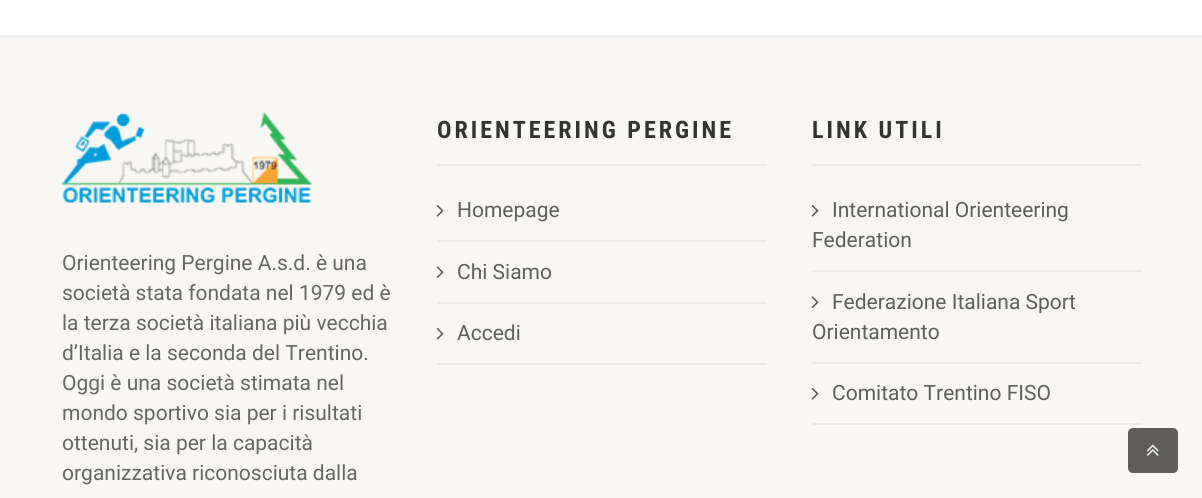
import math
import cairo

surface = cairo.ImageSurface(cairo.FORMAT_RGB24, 1202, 498)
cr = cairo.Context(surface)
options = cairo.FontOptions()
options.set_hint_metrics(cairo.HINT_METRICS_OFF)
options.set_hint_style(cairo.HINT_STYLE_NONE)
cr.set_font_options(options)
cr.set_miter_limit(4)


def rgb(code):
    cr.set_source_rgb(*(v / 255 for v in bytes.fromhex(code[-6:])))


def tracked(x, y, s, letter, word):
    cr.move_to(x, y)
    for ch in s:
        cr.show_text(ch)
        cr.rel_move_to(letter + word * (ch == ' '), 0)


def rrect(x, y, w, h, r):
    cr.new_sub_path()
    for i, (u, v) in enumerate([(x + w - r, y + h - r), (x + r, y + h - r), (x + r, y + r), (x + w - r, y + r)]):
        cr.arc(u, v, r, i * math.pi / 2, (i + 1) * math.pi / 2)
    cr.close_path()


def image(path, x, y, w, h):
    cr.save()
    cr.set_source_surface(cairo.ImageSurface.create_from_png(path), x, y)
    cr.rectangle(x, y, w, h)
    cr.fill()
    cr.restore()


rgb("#ffffff")
cr.paint()
rgb("#ededed")
cr.rectangle(0, 35, 1202, 3)
cr.fill()
rgb("#f8f7f3")
cr.rectangle(0, 38, 1202, 460)
cr.fill()
image("img/1.png", 61, 112, 251, 91)
rgb("#eceae4")
cr.rectangle(437, 164, 330, 2)
cr.fill()
cr.rectangle(437, 240, 330, 2)
cr.fill()
image("img/2.png", 436, 205, 8, 12)
cr.rectangle(437, 302, 330, 2)
cr.fill()
image("img/3.png", 436, 266, 8, 12)
cr.rectangle(437, 363, 330, 2)
cr.fill()
image("img/2.png", 436, 328, 8, 12)
cr.rectangle(812, 164, 330, 2)
cr.fill()
cr.rectangle(812, 270, 330, 2)
cr.fill()
image("img/2.png", 811, 205, 8, 12)
cr.rectangle(812, 362, 330, 2)
cr.fill()
image("img/3.png", 811, 296, 8, 12)
cr.rectangle(812, 423, 330, 2)
cr.fill()
image("img/2.png", 811, 388, 8, 12)
rgb("#5f5e5d")
rrect(1128, 428, 50, 45, 5)
cr.fill()
image("img/4.png", 1147, 444, 12, 12)
cr.select_font_face("Roboto")
cr.set_font_size(21)
rgb("#666666")
for x, y, s in [
    (62, 270, "Orienteering Pergine A.s.d. è una"),
    (62, 300, "società stata fondata nel 1979 ed è"),
    (62, 330, "la terza società italiana più vecchia"),
    (62, 360, "d’Italia e la seconda del Trentino."),
    (62, 390, "Oggi è una società stimata nel"),
    (62, 420, "mondo sportivo sia per i risultati"),
    (62, 450, "ottenuti, sia per la capacità"),
    (62, 480, "organizzativa riconosciuta dalla"),
]:
    cr.move_to(x, y)
    cr.show_text(s)
cr.select_font_face("Roboto Condensed", cairo.FONT_SLANT_NORMAL, cairo.FONT_WEIGHT_BOLD)
cr.set_font_size(24)
rgb("#333333")
tracked(437, 138, "ORIENTEERING PERGINE", 3, 0)
cr.select_font_face("Roboto")
cr.set_font_size(21)
rgb("#5e5e5e")
for x, y, s in [
    (457, 217, "Homepage"),
    (457, 279, "Chi Siamo"),
    (457, 340, "Accedi"),
]:
    cr.move_to(x, y)
    cr.show_text(s)
cr.select_font_face("Roboto Condensed", cairo.FONT_SLANT_NORMAL, cairo.FONT_WEIGHT_BOLD)
cr.set_font_size(24)
rgb("#333333")
tracked(812, 138, "LINK UTILI", 3, 0)
cr.select_font_face("Roboto")
cr.set_font_size(21)
rgb("#5e5e5e")
for x, y, s in [
    (832, 217, "International Orienteering"),
    (812, 247, "Federation"),
    (832, 309, "Federazione Italiana Sport"),
    (812, 339, "Orientamento"),
    (832, 400, "Comitato Trentino FISO"),
]:
    cr.move_to(x, y)
    cr.show_text(s)
surface.write_to_png("page.png")
